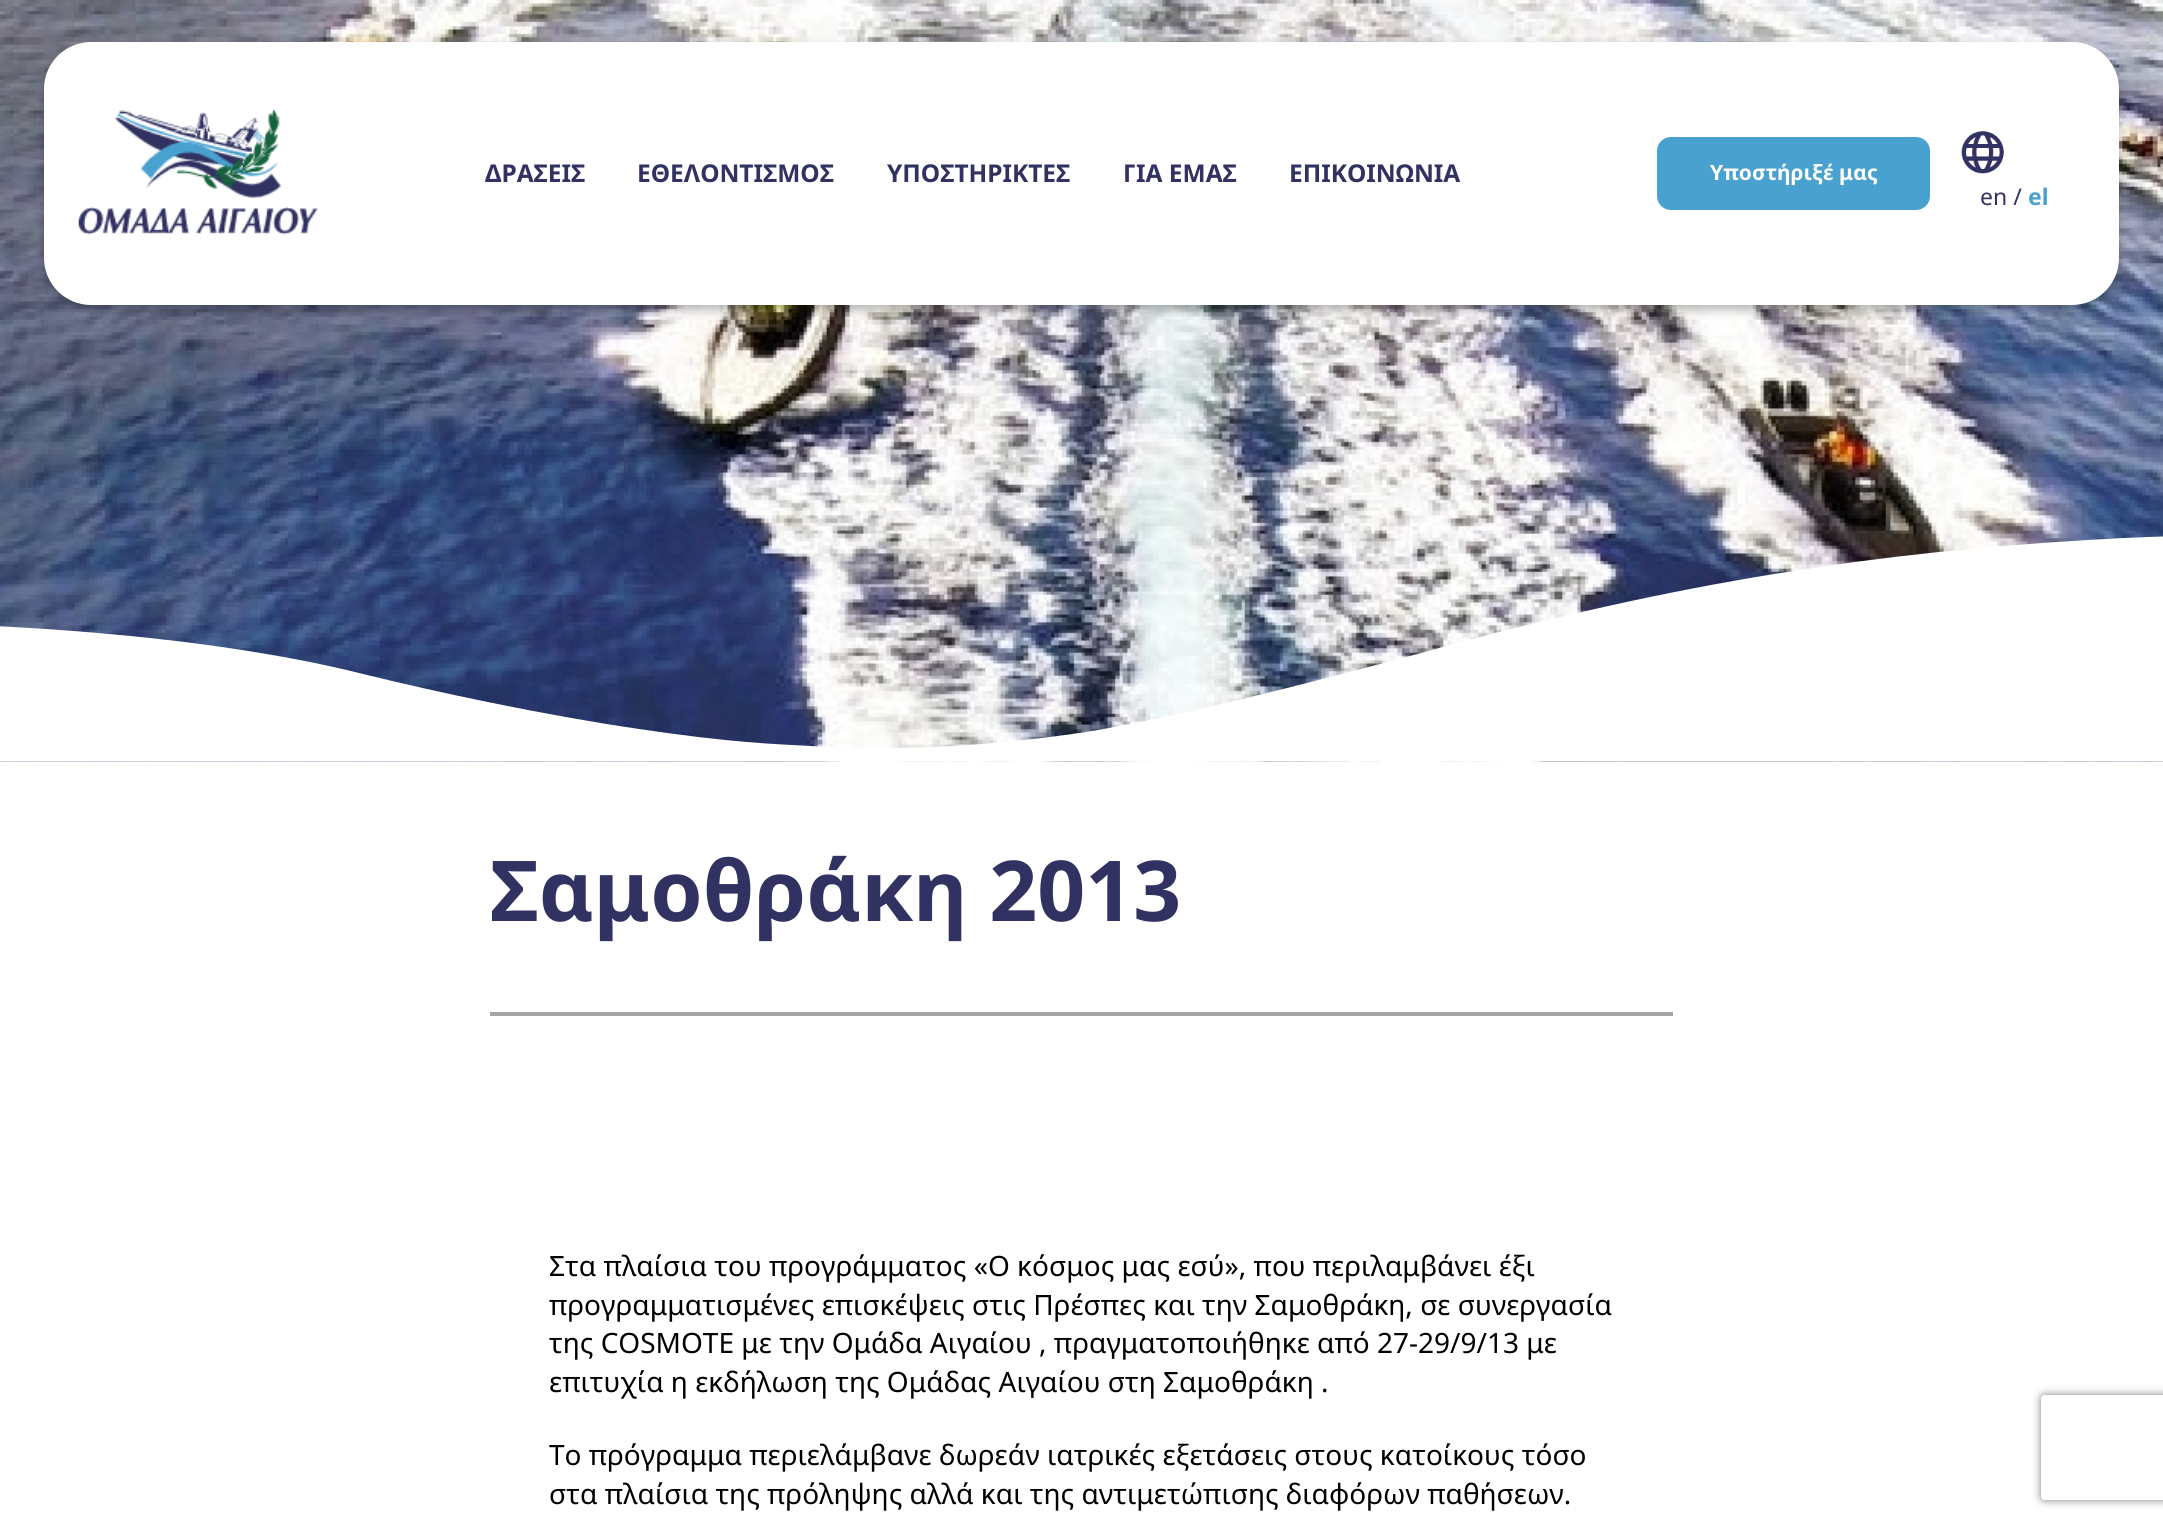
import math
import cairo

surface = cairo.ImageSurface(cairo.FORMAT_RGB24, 2163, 1524)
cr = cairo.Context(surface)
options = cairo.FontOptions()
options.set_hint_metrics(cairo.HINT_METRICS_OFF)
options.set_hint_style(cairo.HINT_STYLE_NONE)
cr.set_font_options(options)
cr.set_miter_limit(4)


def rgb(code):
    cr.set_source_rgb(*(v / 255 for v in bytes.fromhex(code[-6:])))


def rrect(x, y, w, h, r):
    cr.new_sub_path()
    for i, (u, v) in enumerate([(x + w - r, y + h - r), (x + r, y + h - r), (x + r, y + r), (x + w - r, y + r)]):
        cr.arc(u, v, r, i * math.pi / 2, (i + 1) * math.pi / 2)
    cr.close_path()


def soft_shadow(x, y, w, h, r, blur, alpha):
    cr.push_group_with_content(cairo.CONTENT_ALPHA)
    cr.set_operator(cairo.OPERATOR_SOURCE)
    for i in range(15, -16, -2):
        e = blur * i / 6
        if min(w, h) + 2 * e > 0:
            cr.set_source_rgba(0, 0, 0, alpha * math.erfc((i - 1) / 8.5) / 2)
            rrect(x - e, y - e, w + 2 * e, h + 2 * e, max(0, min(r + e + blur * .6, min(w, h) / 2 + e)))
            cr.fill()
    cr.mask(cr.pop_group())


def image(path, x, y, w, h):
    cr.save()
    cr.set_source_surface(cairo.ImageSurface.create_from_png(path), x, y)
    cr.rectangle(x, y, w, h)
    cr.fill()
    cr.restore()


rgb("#ffffff")
cr.paint()
image("img/3.png", 0, 0, 2163, 762)
rgb("#000000")
soft_shadow(44, 47, 2075, 263, 47, 5, 0.28)
rgb("#ffffff")
rrect(44, 42, 2075, 263, 47)
cr.fill()
image("img/1.png", 78, 110, 240, 125)
rgb("#49a1cf")
rrect(1657, 137, 273, 73, 14)
cr.fill()
image("img/2.png", 1961, 131, 43, 43)
rgb("#ffffff")
cr.new_path()
cr.move_to(811, 746)
cr.curve_to(889, 752, 989, 746, 1072, 734)
cr.curve_to(1154, 723, 1318, 681, 1421, 653)
cr.curve_to(1683, 580, 1884, 552, 2088, 540)
cr.curve_to(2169, 535, 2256, 532, 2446, 546)
cr.curve_to(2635, 559, 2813, 604, 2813, 604)
cr.line_to(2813, 761)
cr.line_to(-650, 761)
cr.line_to(-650, 692)
cr.curve_to(-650, 692, -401, 618, -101, 623)
cr.curve_to(34, 625, 220, 638, 363, 674)
cr.curve_to(436, 692, 543, 715, 639, 729)
cr.curve_to(733, 743, 775, 744, 811, 746)
cr.close_path()
cr.fill()
rgb("#a5a5a5")
cr.rectangle(490, 1012, 1183, 4)
cr.fill()
cr.save()
cr.set_fill_rule(cairo.FILL_RULE_EVEN_ODD)
cr.new_path()
cr.move_to(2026, 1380)
cr.line_to(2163, 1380)
cr.line_to(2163, 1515)
cr.line_to(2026, 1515)
cr.close_path()
cr.move_to(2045, 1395)
cr.line_to(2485, 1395)
cr.curve_to(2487, 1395, 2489, 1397, 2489, 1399)
cr.line_to(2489, 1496)
cr.curve_to(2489, 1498, 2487, 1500, 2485, 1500)
cr.line_to(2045, 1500)
cr.curve_to(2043, 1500, 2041, 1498, 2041, 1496)
cr.line_to(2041, 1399)
cr.curve_to(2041, 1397, 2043, 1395, 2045, 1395)
cr.close_path()
cr.clip()
rgb("#808080")
soft_shadow(2041, 1395, 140, 105, 4, 4.5, 1)
cr.restore()
cr.select_font_face("Noto Sans", cairo.FONT_SLANT_NORMAL, cairo.FONT_WEIGHT_BOLD)
cr.set_font_size(24.5)
rgb("#313262")
for x, y, s in [
    (485, 182, "ΔΡΑΣΕΙΣ"),
    (637, 182, "ΕΘΕΛΟΝΤΙΣΜΟΣ"),
    (887, 182, "ΥΠΟΣΤΗΡΙΚΤΕΣ"),
    (1123, 182, "ΓΙΑ ΕΜΑΣ"),
    (1289, 182, "ΕΠΙΚΟΙΝΩΝΙΑ"),
]:
    cr.move_to(x, y)
    cr.show_text(s)
cr.set_font_size(21)
rgb("#ffffff")
cr.move_to(1710, 180)
cr.show_text("Υποστήριξέ μας")
cr.select_font_face("Noto Sans")
cr.set_font_size(23)
rgb("#313262")
cr.move_to(1980, 205)
cr.show_text("en /")
cr.select_font_face("Noto Sans", cairo.FONT_SLANT_NORMAL, cairo.FONT_WEIGHT_BOLD)
rgb("#49a1cf")
cr.move_to(2028, 205)
cr.show_text("el")
cr.set_font_size(84)
rgb("#313262")
cr.move_to(490, 921)
cr.show_text("Σαμοθράκη 2013")
cr.select_font_face("Noto Sans")
cr.set_font_size(28)
rgb("#000000")
for x, y, s in [
    (549, 1276, "Στα πλαίσια του προγράμματος «Ο κόσμος μας εσύ», που περιλαμβάνει έξι"),
    (549, 1315, "προγραμματισμένες επισκέψεις στις Πρέσπες και την Σαμοθράκη, σε συνεργασία"),
    (549, 1353, "της COSMOTE με την Ομάδα Αιγαίου , πραγματοποιήθηκε από 27-29/9/13 με"),
    (549, 1392, "επιτυχία η εκδήλωση της Ομάδας Αιγαίου στη Σαμοθράκη ."),
    (549, 1465, "Το πρόγραμμα περιελάμβανε δωρεάν ιατρικές εξετάσεις στους κατοίκους τόσο"),
    (549, 1504, "στα πλαίσια της πρόληψης αλλά και της αντιμετώπισης διαφόρων παθήσεων."),
]:
    cr.move_to(x, y)
    cr.show_text(s)
surface.write_to_png("page.png")
